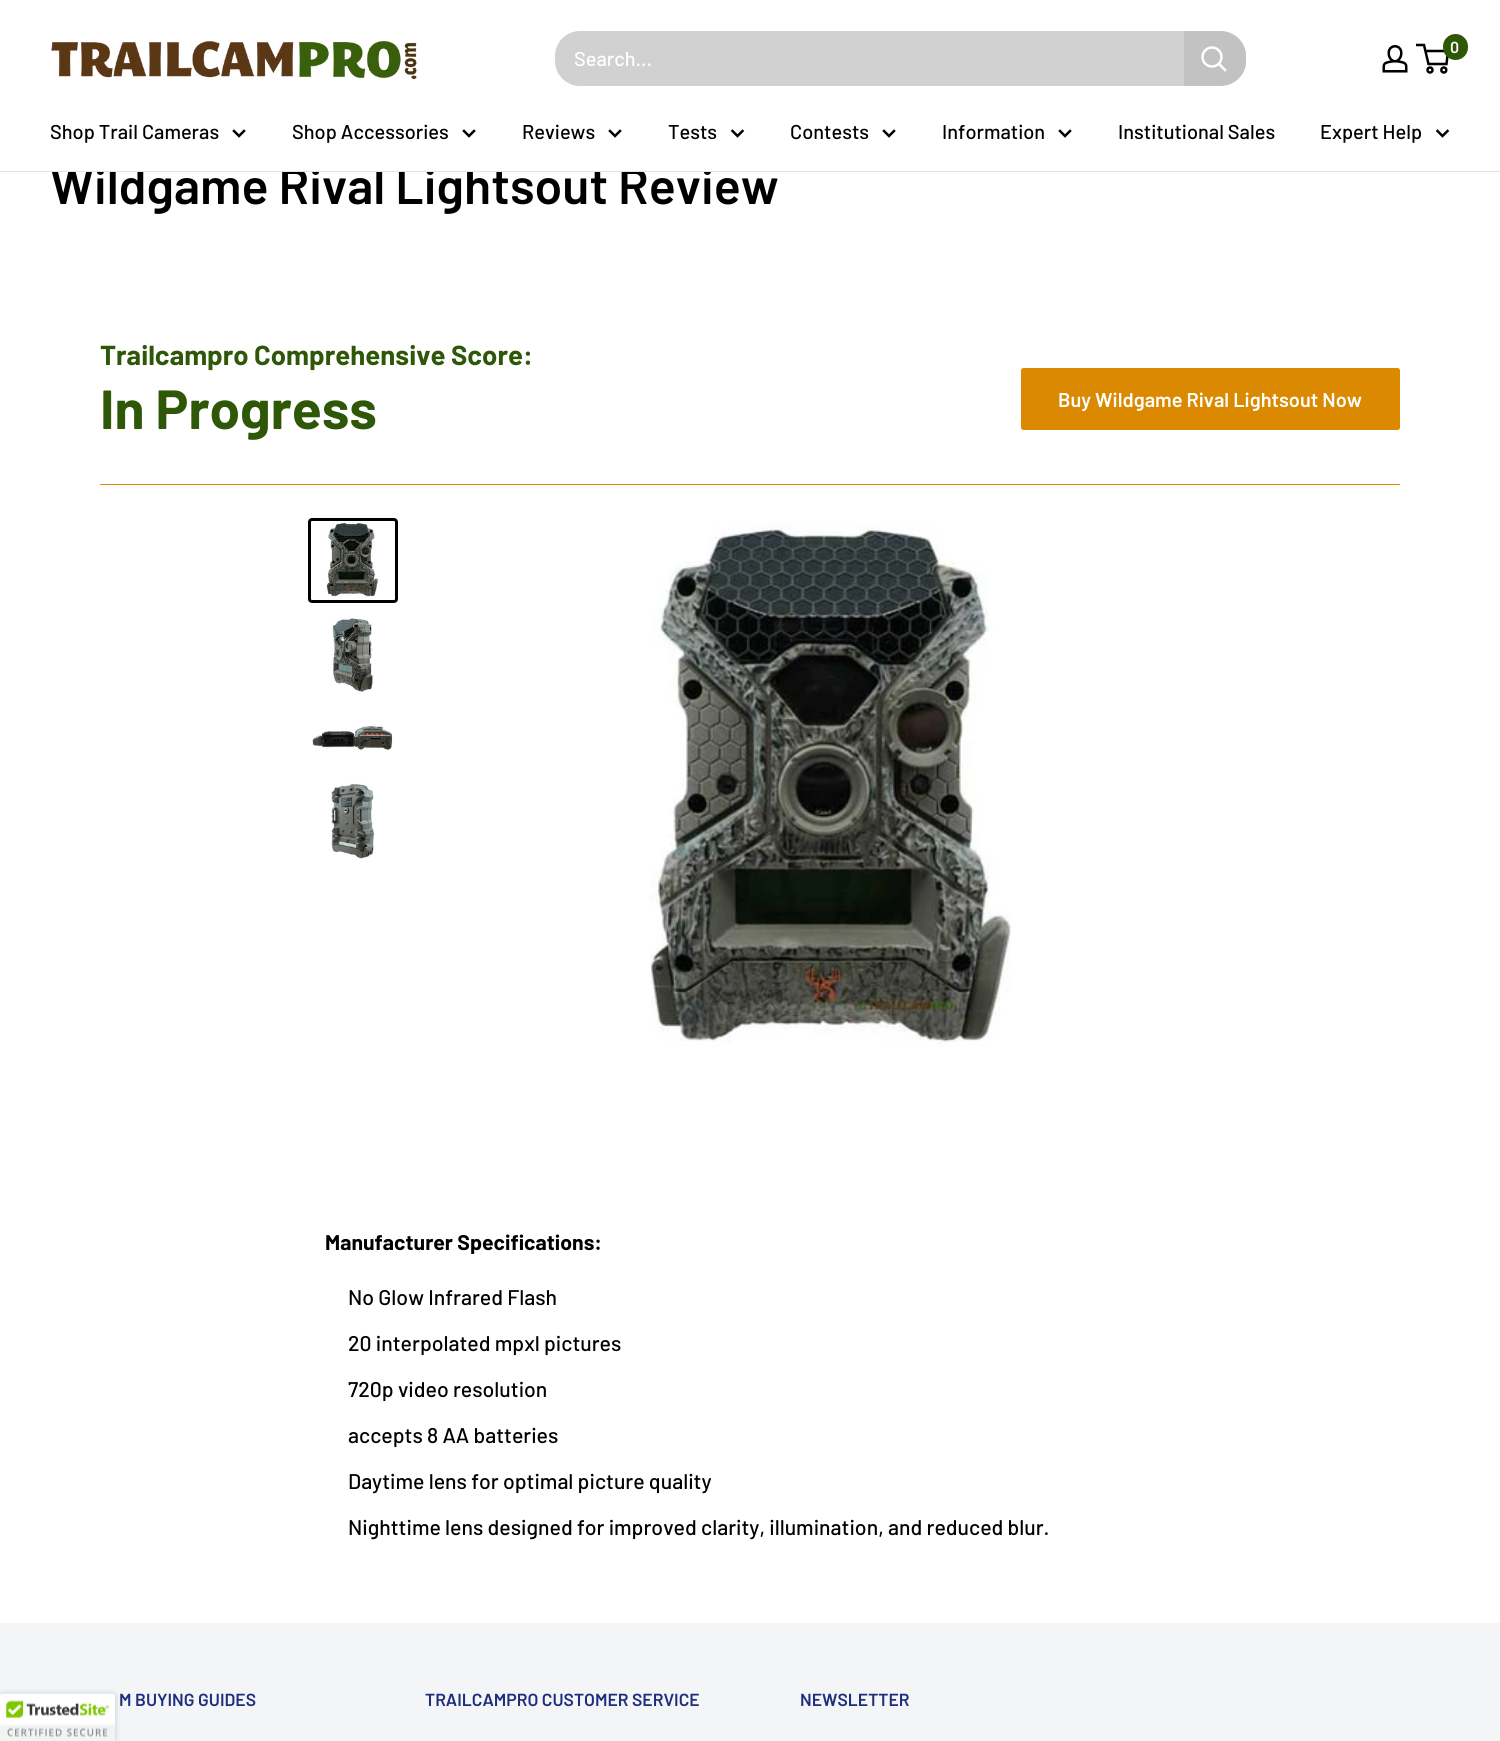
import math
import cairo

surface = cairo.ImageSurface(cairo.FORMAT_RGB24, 1500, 1741)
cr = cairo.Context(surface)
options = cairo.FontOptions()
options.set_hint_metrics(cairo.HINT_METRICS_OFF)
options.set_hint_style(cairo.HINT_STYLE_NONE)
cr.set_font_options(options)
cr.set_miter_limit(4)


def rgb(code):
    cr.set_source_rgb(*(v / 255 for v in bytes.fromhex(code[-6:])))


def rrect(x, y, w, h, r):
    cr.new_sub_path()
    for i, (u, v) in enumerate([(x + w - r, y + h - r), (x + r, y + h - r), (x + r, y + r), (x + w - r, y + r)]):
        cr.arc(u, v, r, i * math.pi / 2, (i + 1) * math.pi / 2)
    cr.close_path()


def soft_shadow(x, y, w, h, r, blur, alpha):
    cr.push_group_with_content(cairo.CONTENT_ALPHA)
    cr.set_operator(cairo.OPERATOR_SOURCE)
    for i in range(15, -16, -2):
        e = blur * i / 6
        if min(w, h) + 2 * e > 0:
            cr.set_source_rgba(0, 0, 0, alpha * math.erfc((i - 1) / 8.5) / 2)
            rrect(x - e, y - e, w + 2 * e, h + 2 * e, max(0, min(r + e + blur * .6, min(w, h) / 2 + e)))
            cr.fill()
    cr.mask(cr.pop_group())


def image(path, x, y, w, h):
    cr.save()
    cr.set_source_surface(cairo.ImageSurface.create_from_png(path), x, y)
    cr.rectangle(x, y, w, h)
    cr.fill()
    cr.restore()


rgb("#ffffff")
cr.paint()
image("img/1.png", 51, 40, 366, 40)
image("img/2.png", 1382, 45, 26, 28)
cr.arc(1430, 70, 2.5, 0, 2 * math.pi)
rgb("#000000")
cr.set_line_width(2.5)
cr.stroke()
cr.arc(1443.8, 70, 2.5, 0, 2 * math.pi)
cr.stroke()
cr.new_path()
cr.move_to(1425.5, 51)
cr.line_to(1448, 51)
cr.line_to(1446.5, 64)
cr.line_to(1428.5, 64)
cr.line_to(1424, 45)
cr.line_to(1416, 45)
cr.stroke()
rgb("#2e5708")
rrect(1443, 34, 25, 26, 12.5)
cr.fill()
rgb("#d1d1d1")
rrect(555, 31, 691, 55, 25)
cr.fill()
cr.set_source_rgba(0.729, 0.729, 0.729, 0.67)
cr.new_path()
cr.move_to(1184, 31)
cr.line_to(1218, 31)
cr.curve_to(1234, 31, 1246, 42, 1246, 56)
cr.line_to(1246, 62)
cr.curve_to(1246, 75, 1234, 86, 1218, 86)
cr.line_to(1184, 86)
cr.close_path()
cr.fill()
cr.new_path()
cr.move_to(1225, 70)
cr.line_to(1219, 64)
rgb("#ffffff")
cr.set_line_cap(cairo.LINE_CAP_SQUARE)
cr.stroke()
cr.arc(1212, 57, 9.5, 0, 2 * math.pi)
cr.set_line_cap(cairo.LINE_CAP_BUTT)
cr.stroke()
cr.new_path()
cr.move_to(244, 131)
cr.line_to(239, 136)
cr.line_to(234, 131)
rgb("#000000")
cr.set_line_cap(cairo.LINE_CAP_SQUARE)
cr.stroke()
cr.new_path()
cr.move_to(474, 131)
cr.line_to(469, 136)
cr.line_to(464, 131)
cr.stroke()
cr.new_path()
cr.move_to(620, 131)
cr.line_to(615, 136)
cr.line_to(610, 131)
cr.stroke()
cr.new_path()
cr.move_to(742.5, 131)
cr.line_to(737.5, 136)
cr.line_to(732.5, 131)
cr.stroke()
cr.new_path()
cr.move_to(894, 131)
cr.line_to(889, 136)
cr.line_to(884, 131)
cr.stroke()
cr.new_path()
cr.move_to(1070, 131)
cr.line_to(1065, 136)
cr.line_to(1060, 131)
cr.stroke()
cr.new_path()
cr.move_to(1447.5, 131)
cr.line_to(1442.5, 136)
cr.line_to(1437.5, 131)
cr.stroke()
rgb("#db8901")
cr.rectangle(100, 484, 1300, 1)
cr.fill()
rgb("#db8900")
rrect(1021, 368, 379, 62, 2.5)
cr.fill()
rrect(309.5, 519.5, 87, 82, 2.5)
rgb("#000000")
cr.set_line_width(3)
cr.set_line_cap(cairo.LINE_CAP_BUTT)
cr.stroke()
image("img/3.png", 326, 522, 53, 75)
image("img/4.png", 332, 617, 42, 75)
image("img/5.png", 312, 724, 81, 27)
image("img/6.png", 330, 783, 45, 76)
image("img/7.png", 650, 522, 362, 524)
rgb("#f3f5f6")
cr.rectangle(0, 1623, 1500, 118)
cr.fill()
rgb("#000000")
soft_shadow(0, 1694, 115, 47, 2.5, 3, 0.2)
rgb("#ffffff")
cr.new_path()
cr.move_to(0, 1694)
cr.line_to(112.5, 1694)
cr.curve_to(114, 1694, 115, 1695, 115, 1696.5)
cr.line_to(115, 1741)
cr.line_to(0, 1741)
cr.close_path()
cr.fill()
image("img/8.png", 0, 1693, 115, 48)
cr.select_font_face("Barlow SemiBold")
cr.set_font_size(16)
cr.move_to(1450, 53)
cr.show_text("0")
cr.select_font_face("Barlow Medium")
cr.set_font_size(20)
cr.move_to(574, 66)
cr.show_text("Search...")
rgb("#000000")
for x, y, s in [
    (50, 139, "Shop Trail Cameras"),
    (292, 139, "Shop Accessories"),
    (522, 139, "Reviews"),
    (668, 139, "Tests"),
    (790, 139, "Contests"),
    (942, 139, "Information"),
    (1118, 139, "Institutional Sales"),
    (1320, 139, "Expert Help"),
]:
    cr.move_to(x, y)
    cr.show_text(s)
cr.select_font_face("Barlow SemiBold")
cr.set_font_size(50)
cr.move_to(50, 204)
cr.show_text("Wildgame Rival Lightsout Review")
rgb("#e1e3e4")
cr.rectangle(0, 171, 1500, 1)
cr.fill()
rgb("#ffffff")
cr.rectangle(51, 167, 660, 4)
cr.fill()
cr.select_font_face("Barlow", cairo.FONT_SLANT_NORMAL, cairo.FONT_WEIGHT_BOLD)
cr.set_font_size(27.5)
rgb("#2e5708")
cr.move_to(100, 365)
cr.show_text("Trailcampro Comprehensive Score:")
cr.set_font_size(55)
cr.move_to(100, 429)
cr.show_text("In Progress")
cr.select_font_face("Barlow SemiBold")
cr.set_font_size(20)
rgb("#ffffff")
cr.move_to(1058, 407)
cr.show_text("Buy Wildgame Rival Lightsout Now")
cr.select_font_face("Barlow", cairo.FONT_SLANT_NORMAL, cairo.FONT_WEIGHT_BOLD)
cr.set_font_size(21.25)
rgb("#000000")
cr.move_to(325, 1250)
cr.show_text("Manufacturer Specifications:")
cr.select_font_face("Barlow Medium")
for x, y, s in [
    (348, 1305, "No Glow Infrared Flash"),
    (348, 1351, "20 interpolated mpxl pictures"),
    (348, 1397, "720p video resolution"),
    (348, 1443, "accepts 8 AA batteries"),
    (348, 1489, "Daytime lens for optimal picture quality"),
    (348, 1535, "Nighttime lens designed for improved clarity, illumination, and reduced blur."),
]:
    cr.move_to(x, y)
    cr.show_text(s)
cr.select_font_face("Barlow SemiBold")
cr.set_font_size(17.5)
rgb("#1e2d7d")
for x, y, s in [
    (119, 1706, "M BUYING GUIDES"),
    (425, 1706, "TRAILCAMPRO CUSTOMER SERVICE"),
    (800, 1706, "NEWSLETTER"),
]:
    cr.move_to(x, y)
    cr.show_text(s)
surface.write_to_png("page.png")
